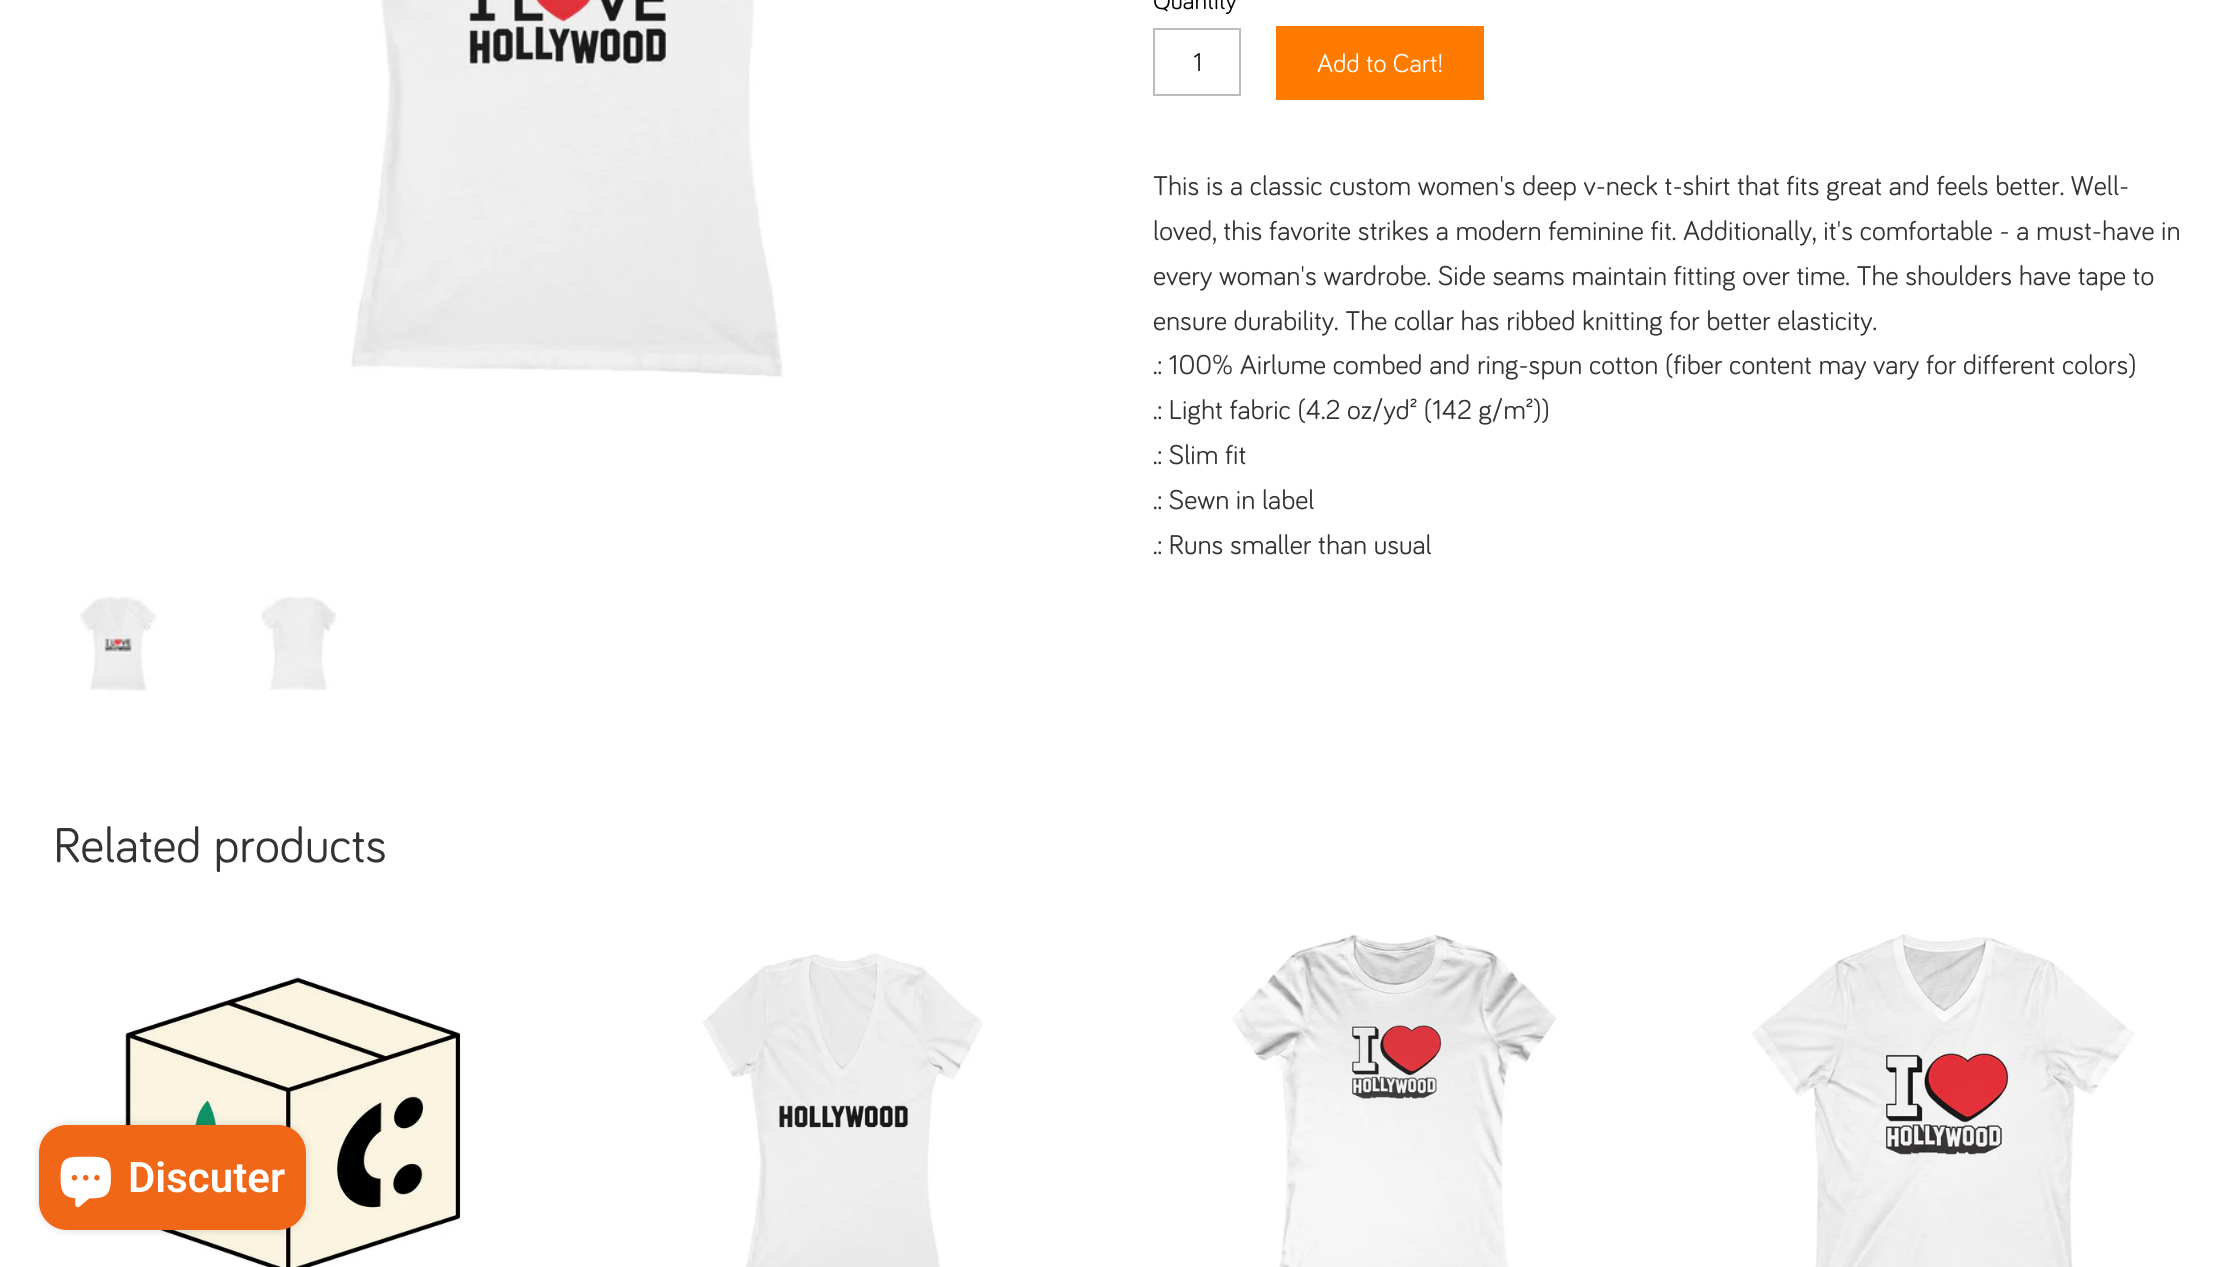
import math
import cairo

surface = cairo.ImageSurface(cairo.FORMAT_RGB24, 2236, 1267)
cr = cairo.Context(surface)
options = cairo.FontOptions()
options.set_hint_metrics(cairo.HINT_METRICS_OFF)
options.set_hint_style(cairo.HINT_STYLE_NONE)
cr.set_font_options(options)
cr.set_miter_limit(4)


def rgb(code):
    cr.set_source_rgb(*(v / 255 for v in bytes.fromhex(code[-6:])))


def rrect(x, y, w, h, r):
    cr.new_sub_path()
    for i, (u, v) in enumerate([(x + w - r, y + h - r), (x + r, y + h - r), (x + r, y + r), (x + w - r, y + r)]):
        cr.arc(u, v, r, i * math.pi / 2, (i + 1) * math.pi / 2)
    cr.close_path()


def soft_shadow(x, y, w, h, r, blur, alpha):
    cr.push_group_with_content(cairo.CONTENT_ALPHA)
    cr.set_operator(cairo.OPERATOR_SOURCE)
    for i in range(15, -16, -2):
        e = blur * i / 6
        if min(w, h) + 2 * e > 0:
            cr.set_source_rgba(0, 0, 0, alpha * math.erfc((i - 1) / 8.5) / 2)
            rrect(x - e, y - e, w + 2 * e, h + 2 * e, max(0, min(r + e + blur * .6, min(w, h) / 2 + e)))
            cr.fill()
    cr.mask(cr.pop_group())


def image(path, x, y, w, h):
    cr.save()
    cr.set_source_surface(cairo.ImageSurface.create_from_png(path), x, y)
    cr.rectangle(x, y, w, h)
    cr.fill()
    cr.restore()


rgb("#ffffff")
cr.paint()
image("img/1.png", 351, 0, 432, 377)
image("img/2.png", 80, 596, 77, 96)
image("img/3.png", 261, 596, 76, 95)
cr.rectangle(1154, 29, 86, 66)
rgb("#bcbcbc")
cr.stroke()
rgb("#ff7b00")
cr.rectangle(1276, 26, 208, 74)
cr.fill()
image("img/4.png", 124, 976, 338, 291)
image("img/5.png", 703, 953, 280, 314)
image("img/6.png", 1232, 934, 325, 333)
image("img/7.png", 1751, 934, 384, 333)
rgb("#000000")
soft_shadow(39, 1125, 267, 105, 28, 4.5, 0.15)
rgb("#f06718")
rrect(39, 1125, 267, 105, 28)
cr.fill()
image("img/8.png", 60, 1156, 51, 52)
cr.select_font_face("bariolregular")
cr.set_font_size(25)
rgb("#000000")
cr.move_to(1153, 9)
cr.show_text("Quantity")
cr.set_font_size(26.5)
rgb("#222222")
cr.move_to(1193, 71)
cr.show_text("1")
rgb("#ffffff")
cr.move_to(1317, 72)
cr.show_text("Add to Cart!")
cr.set_font_size(28)
rgb("#333333")
for x, y, s in [
    (1153, 195, "This is a classic custom women's deep v-neck t-shirt that fits great and feels better. Well-"),
    (1153, 240, "loved, this favorite strikes a modern feminine fit. Additionally, it's comfortable - a must-have in"),
    (1153, 285, "every woman's wardrobe. Side seams maintain fitting over time. The shoulders have tape to"),
    (1153, 330, "ensure durability. The collar has ribbed knitting for better elasticity."),
    (1153, 374, ".: 100% Airlume combed and ring-spun cotton (fiber content may vary for different colors)"),
    (1153, 419, ".: Light fabric (4.2 oz/yd² (142 g/m²))"),
    (1153, 464, ".: Slim fit"),
    (1153, 509, ".: Sewn in label"),
    (1153, 554, ".: Runs smaller than usual"),
]:
    cr.move_to(x, y)
    cr.show_text(s)
cr.set_font_size(50.5)
cr.move_to(53, 862)
cr.show_text("Related products")
cr.select_font_face("Roboto SemiBold")
cr.set_font_size(42)
rgb("#ffffff")
cr.move_to(128, 1192)
cr.show_text("Discuter")
surface.write_to_png("page.png")
